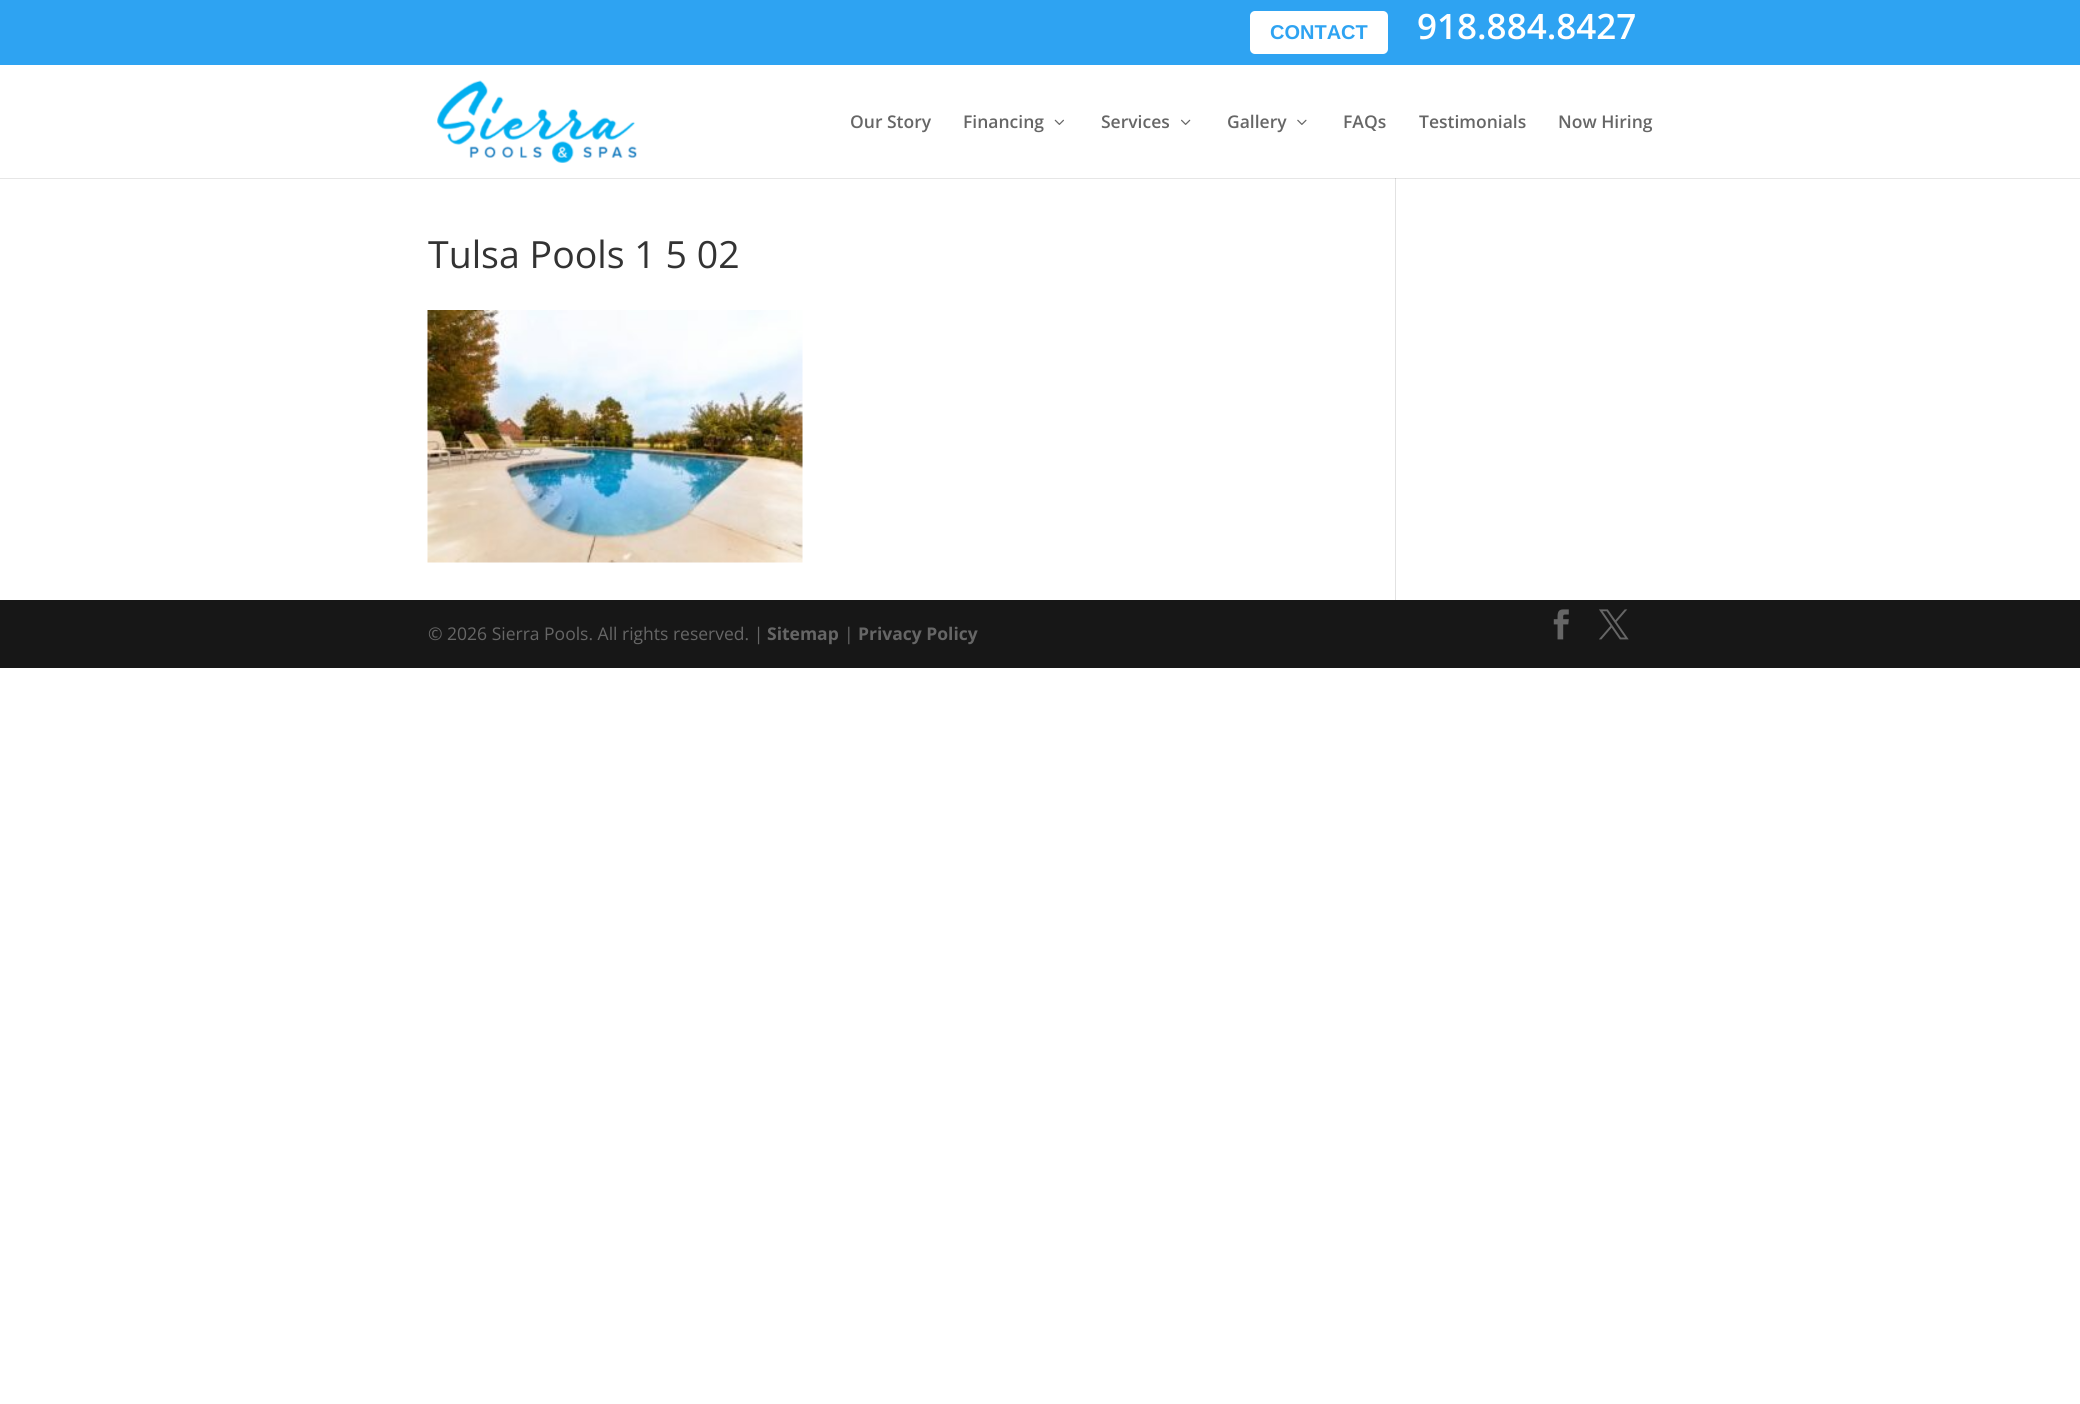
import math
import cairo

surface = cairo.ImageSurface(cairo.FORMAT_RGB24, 2080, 1404)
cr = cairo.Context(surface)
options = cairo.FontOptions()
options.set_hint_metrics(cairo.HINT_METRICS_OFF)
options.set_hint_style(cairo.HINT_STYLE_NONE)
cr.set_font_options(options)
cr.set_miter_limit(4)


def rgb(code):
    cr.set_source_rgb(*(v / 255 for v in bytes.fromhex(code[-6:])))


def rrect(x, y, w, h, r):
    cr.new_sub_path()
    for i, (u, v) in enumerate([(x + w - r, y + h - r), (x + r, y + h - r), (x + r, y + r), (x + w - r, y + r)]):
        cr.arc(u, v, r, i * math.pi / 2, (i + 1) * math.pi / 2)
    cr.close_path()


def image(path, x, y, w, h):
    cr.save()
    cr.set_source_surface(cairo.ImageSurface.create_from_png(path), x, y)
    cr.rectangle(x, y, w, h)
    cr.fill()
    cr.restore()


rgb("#ffffff")
cr.paint()
rgb("#e6e6e6")
cr.rectangle(0, 178, 2080, 1)
cr.fill()
rgb("#2ea3f2")
cr.rectangle(0, 0, 2080, 65)
cr.fill()
rgb("#ffffff")
rrect(1250, 11, 138, 43, 5)
cr.fill()
image("img/1.png", 437, 80, 200, 83)
image("img/2.png", 1054, 119, 10, 6)
image("img/3.png", 1181, 119, 10, 6)
image("img/4.png", 1297, 119, 10, 6)
image("img/5.png", 427, 310, 376, 253)
for x, y, w, h, color in [
    (1395, 179, 1, 421, "#e2e2e2"),
    (1395, 178, 1, 1, "#cbcbcb"),
    (0, 600, 2080, 68, "#171717"),
]:
    rgb(color)
    cr.rectangle(x, y, w, h)
    cr.fill()
image("img/6.png", 1553, 609, 16, 31)
image("img/7.png", 1599, 609, 30, 31)
cr.select_font_face("Liberation Sans", cairo.FONT_SLANT_NORMAL, cairo.FONT_WEIGHT_BOLD)
cr.set_font_size(20)
rgb("#2ea3f2")
cr.move_to(1270, 39)
cr.show_text("CONTACT")
cr.select_font_face("Open Sans SemiBold")
cr.set_font_size(35)
rgb("#ffffff")
cr.move_to(1417, 39)
cr.show_text("918.884.8427")
cr.set_font_size(17.5)
rgb("#666666")
for x, y, s in [
    (850, 128, "Our Story"),
    (963, 128, "Financing"),
    (1101, 128, "Services"),
    (1227, 128, "Gallery"),
    (1343, 128, "FAQs"),
    (1419, 128, "Testimonials"),
    (1558, 128, "Now Hiring"),
]:
    cr.move_to(x, y)
    cr.show_text(s)
cr.select_font_face("Open Sans")
cr.set_font_size(37.5)
rgb("#333333")
cr.move_to(428, 268)
cr.show_text("Tulsa Pools 1 5 02")
cr.set_font_size(17.5)
rgb("#666666")
cr.move_to(428, 640)
cr.show_text("© 2026 Sierra Pools. All rights reserved. |")
cr.select_font_face("Open Sans", cairo.FONT_SLANT_NORMAL, cairo.FONT_WEIGHT_BOLD)
cr.move_to(767, 640)
cr.show_text("Sitemap")
cr.select_font_face("Open Sans")
cr.move_to(844, 640)
cr.show_text("|")
cr.select_font_face("Open Sans", cairo.FONT_SLANT_NORMAL, cairo.FONT_WEIGHT_BOLD)
cr.move_to(858, 640)
cr.show_text("Privacy Policy")
surface.write_to_png("page.png")
